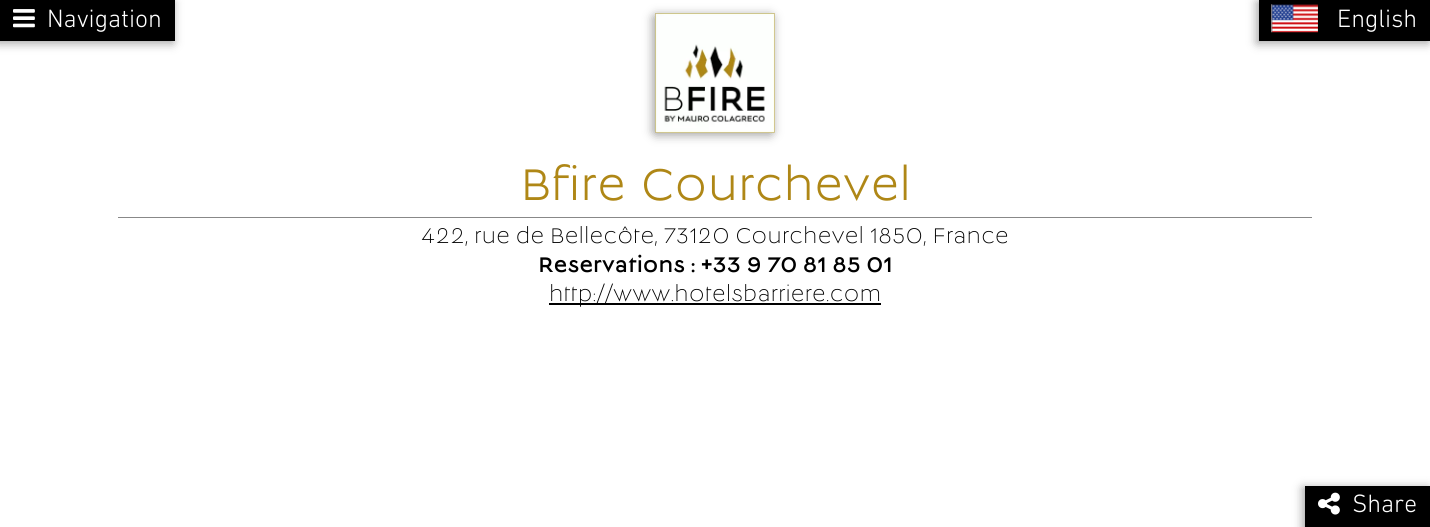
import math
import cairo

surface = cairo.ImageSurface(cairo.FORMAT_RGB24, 1430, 527)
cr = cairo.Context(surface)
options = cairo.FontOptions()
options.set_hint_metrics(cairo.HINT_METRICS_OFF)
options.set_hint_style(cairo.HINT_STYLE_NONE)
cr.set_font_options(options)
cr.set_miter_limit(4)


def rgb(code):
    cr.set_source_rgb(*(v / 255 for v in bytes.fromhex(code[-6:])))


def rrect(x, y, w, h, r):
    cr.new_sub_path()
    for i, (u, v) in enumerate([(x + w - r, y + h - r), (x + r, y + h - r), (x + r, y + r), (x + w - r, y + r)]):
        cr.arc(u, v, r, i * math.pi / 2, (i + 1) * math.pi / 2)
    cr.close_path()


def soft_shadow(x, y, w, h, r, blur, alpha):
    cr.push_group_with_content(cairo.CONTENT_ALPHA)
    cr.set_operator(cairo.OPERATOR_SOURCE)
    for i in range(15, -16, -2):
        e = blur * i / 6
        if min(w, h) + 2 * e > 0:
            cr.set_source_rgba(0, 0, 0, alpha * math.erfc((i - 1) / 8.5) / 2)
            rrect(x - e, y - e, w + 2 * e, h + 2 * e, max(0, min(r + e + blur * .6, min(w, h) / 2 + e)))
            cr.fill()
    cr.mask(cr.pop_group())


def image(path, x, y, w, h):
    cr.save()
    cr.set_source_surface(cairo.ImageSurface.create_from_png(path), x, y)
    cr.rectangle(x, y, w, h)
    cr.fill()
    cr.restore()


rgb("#ffffff")
cr.paint()
rgb("#888888")
soft_shadow(653, 15, 120, 120, 3, 5, 0.8)
image("img/1.png", 655, 13, 120, 120)
soft_shadow(-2, 2, 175, 41, 0, 5, 0.8)
rgb("#000000")
cr.rectangle(0, 0, 175, 41)
cr.fill()
image("img/2.png", 13, 9, 22, 19)
rgb("#888888")
soft_shadow(1257, 2, 171, 41, 0, 5, 0.8)
rgb("#000000")
cr.rectangle(1259, 0, 171, 41)
cr.fill()
image("img/3.png", 1271, 4, 47, 29)
rgb("#888888")
soft_shadow(1303, 488, 125, 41, 0, 5, 0.8)
rgb("#000000")
cr.rectangle(1305, 486, 125, 41)
cr.fill()
image("img/4.png", 1318, 492, 22, 23)
rgb("#888888")
cr.rectangle(118, 217, 1194, 1)
cr.fill()
rgb("#000000")
cr.rectangle(549, 303, 332, 2)
cr.fill()
cr.select_font_face("DIN Next Light")
cr.set_font_size(25.5)
rgb("#ffffff")
for x, y, s in [
    (47, 27, "Navigation"),
    (1337, 27, "English"),
    (1352, 512, "Share"),
]:
    cr.move_to(x, y)
    cr.show_text(s)
cr.select_font_face("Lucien")
cr.set_font_size(49)
rgb("#af8716")
cr.move_to(520, 200)
cr.show_text("Bfire Courchevel")
cr.select_font_face("Lucien Light")
cr.set_font_size(23.4)
rgb("#000000")
cr.move_to(421, 243)
cr.show_text("422, rue de Bellecôte, 73120 Courchevel 1850, France")
cr.select_font_face("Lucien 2")
cr.move_to(538, 272)
cr.show_text("Reservations : +33 9 70 81 85 01")
cr.select_font_face("Lucien Light")
cr.move_to(549, 301)
cr.show_text("http://www.hotelsbarriere.com")
surface.write_to_png("page.png")
